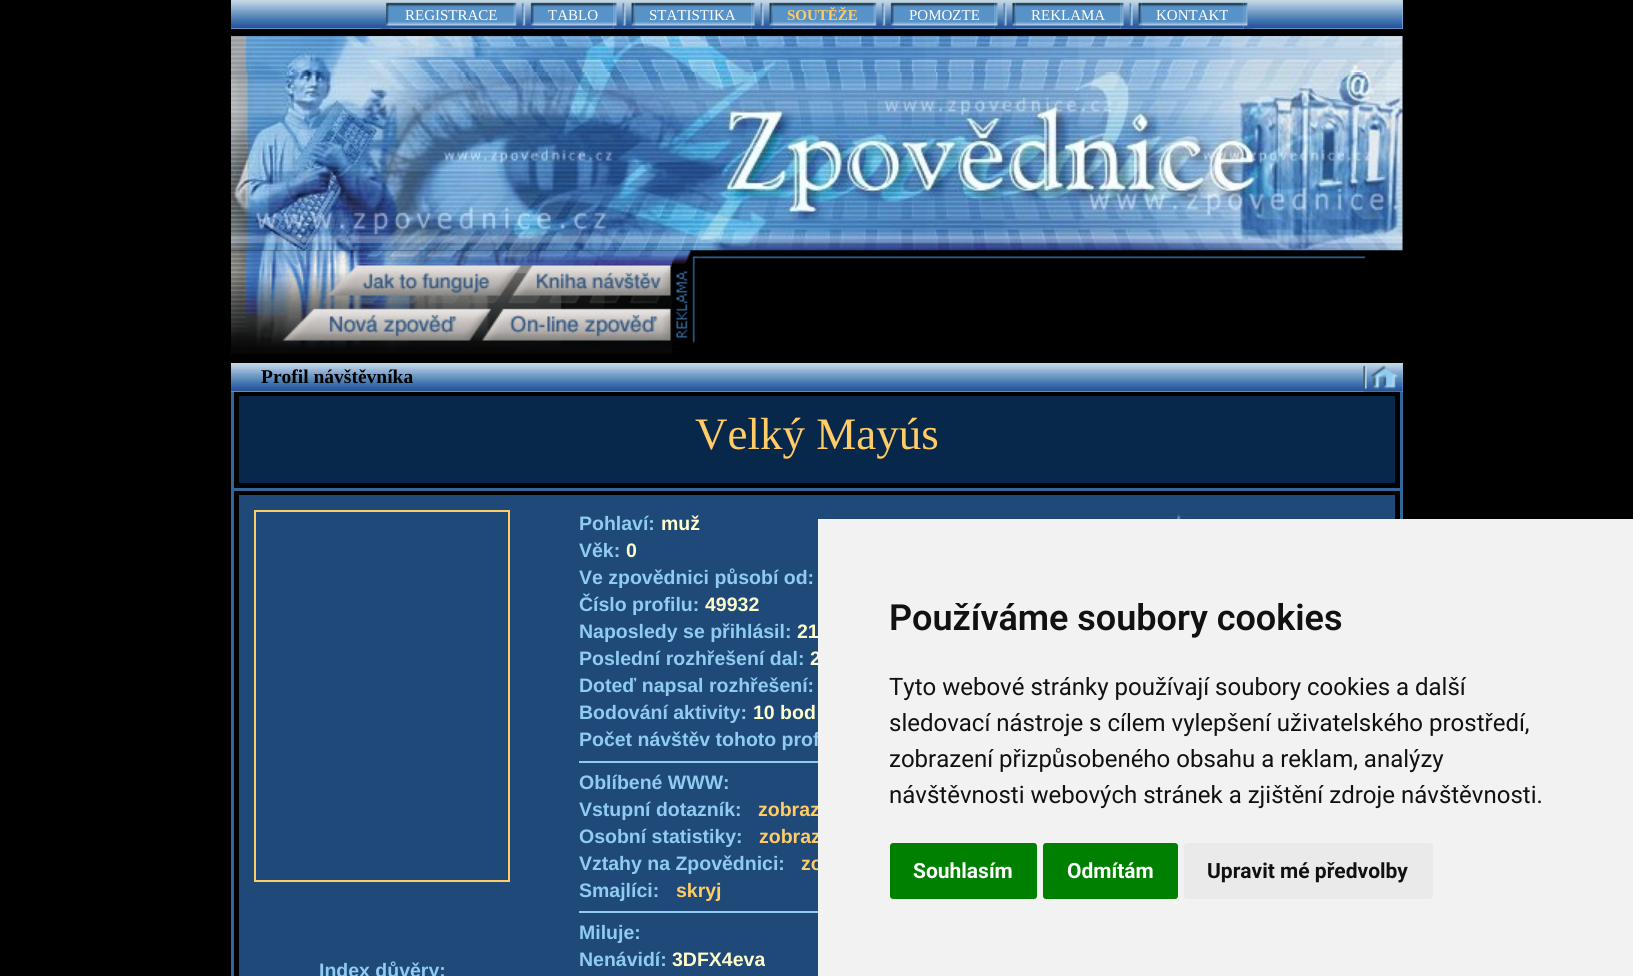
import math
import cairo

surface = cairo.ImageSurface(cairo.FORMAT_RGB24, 1633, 976)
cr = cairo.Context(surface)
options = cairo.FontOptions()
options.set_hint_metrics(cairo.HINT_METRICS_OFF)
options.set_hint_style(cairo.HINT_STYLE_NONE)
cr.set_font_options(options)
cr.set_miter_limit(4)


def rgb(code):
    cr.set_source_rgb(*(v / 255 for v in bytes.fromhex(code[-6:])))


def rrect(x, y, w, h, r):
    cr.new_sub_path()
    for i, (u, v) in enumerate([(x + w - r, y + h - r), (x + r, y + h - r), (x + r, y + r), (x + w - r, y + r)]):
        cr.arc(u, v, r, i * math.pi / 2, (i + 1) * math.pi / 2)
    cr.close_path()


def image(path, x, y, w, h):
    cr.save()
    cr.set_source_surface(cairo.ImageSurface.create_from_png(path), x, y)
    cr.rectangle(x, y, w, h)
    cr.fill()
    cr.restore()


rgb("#000000")
cr.paint()
rgb("#90ccf1")
cr.rectangle(231, 0, 1172, 29)
cr.fill()
image("img/1.png", 231, 0, 1172, 29)
image("img/2.png", 381, 2, 9, 27)
cr.rectangle(390, 28, 123, 1)
cr.fill()
image("img/3.png", 390, 0, 123, 29)
image("img/4.png", 513, 2, 21, 27)
cr.rectangle(534, 0, 80, 29)
cr.fill()
image("img/5.png", 534, 0, 80, 29)
cr.rectangle(635, 0, 117, 29)
cr.fill()
image("img/7.png", 634, 0, 118, 29)
image("img/6.png", 613, 0, 22, 29)
cr.rectangle(773, 28, 100, 1)
cr.fill()
image("img/9.png", 772, 0, 101, 29)
image("img/8.png", 751, 0, 22, 29)
image("img/10.png", 873, 2, 21, 27)
cr.rectangle(894, 0, 101, 29)
cr.fill()
image("img/11.png", 894, 0, 101, 29)
cr.rectangle(1016, 0, 105, 29)
cr.fill()
image("img/13.png", 1015, 0, 106, 29)
image("img/12.png", 994, 0, 22, 29)
cr.rectangle(1142, 0, 102, 29)
cr.fill()
image("img/14.png", 1141, 0, 103, 29)
image("img/6.png", 1120, 0, 22, 29)
image("img/15.png", 1243, 0, 10, 29)
image("img/16.png", 231, 36, 1172, 36)
image("img/17.png", 231, 72, 1172, 179)
image("img/18.png", 231, 250, 441, 14)
image("img/19.png", 672, 250, 29, 14)
image("img/20.png", 700, 250, 703, 9)
image("img/21.png", 231, 264, 441, 90)
image("img/22.png", 676, 264, 19, 79)
cr.rectangle(231, 391, 849, 1)
cr.fill()
image("img/23.png", 231, 363, 849, 29)
cr.rectangle(1080, 363, 323, 29)
cr.fill()
image("img/24.png", 1080, 363, 323, 29)
image("img/25.png", 1363, 363, 40, 29)
for x, y, w, h, color in [
    (1400, 392, 3, 127, "#336699"),
    (231, 488, 1172, 3, "#336699"),
    (231, 392, 3, 584, "#336699"),
    (239, 396, 1156, 87, "#07274b"),
    (239, 495, 1156, 481, "#1f4978"),
    (579, 761, 239, 2, "#90ccf1"),
    (579, 911, 239, 2, "#90ccf1"),
]:
    rgb(color)
    cr.rectangle(x, y, w, h)
    cr.fill()
image("img/26.png", 1168, 514, 21, 5)
cr.rectangle(255, 511, 254, 370)
rgb("#ffcc66")
cr.stroke()
cr.select_font_face("Liberation Serif")
cr.set_font_size(15)
rgb("#ffffff")
for x, y, s in [
    (405, 20, "REGISTRACE"),
    (548, 20, "TABLO"),
    (649, 20, "STATISTIKA"),
]:
    cr.move_to(x, y)
    cr.show_text(s)
cr.select_font_face("Liberation Serif", cairo.FONT_SLANT_NORMAL, cairo.FONT_WEIGHT_BOLD)
rgb("#ffcc66")
cr.move_to(787, 20)
cr.show_text("SOUTĚŽE")
cr.select_font_face("Liberation Serif")
rgb("#ffffff")
for x, y, s in [
    (909, 20, "POMOZTE"),
    (1031, 20, "REKLAMA"),
    (1156, 20, "KONTAKT"),
]:
    cr.move_to(x, y)
    cr.show_text(s)
cr.select_font_face("Liberation Serif", cairo.FONT_SLANT_NORMAL, cairo.FONT_WEIGHT_BOLD)
cr.set_font_size(19.5)
rgb("#000000")
cr.move_to(261, 383)
cr.show_text("Profil návštěvníka")
cr.select_font_face("Liberation Serif")
cr.set_font_size(45)
rgb("#ffcc66")
cr.move_to(695, 449)
cr.show_text("Velký Mayús")
cr.select_font_face("Liberation Sans", cairo.FONT_SLANT_NORMAL, cairo.FONT_WEIGHT_BOLD)
cr.set_font_size(19.5)
rgb("#90ccf1")
cr.move_to(579, 530)
cr.show_text("Pohlaví:")
rgb("#ffffcc")
cr.move_to(661, 530)
cr.show_text("muž")
rgb("#90ccf1")
cr.move_to(579, 557)
cr.show_text("Věk:")
rgb("#ffffcc")
cr.move_to(626, 557)
cr.show_text("0")
rgb("#90ccf1")
cr.move_to(579, 584)
cr.show_text("Ve zpovědnici působí od:")
cr.move_to(579, 611)
cr.show_text("Číslo profilu:")
rgb("#ffffcc")
cr.move_to(705, 611)
cr.show_text("49932")
rgb("#90ccf1")
cr.move_to(579, 638)
cr.show_text("Naposledy se přihlásil:")
rgb("#ffffcc")
cr.move_to(797, 638)
cr.show_text("21")
rgb("#90ccf1")
cr.move_to(579, 665)
cr.show_text("Poslední rozhřešení dal:")
rgb("#ffffcc")
cr.move_to(810, 665)
cr.show_text("2")
rgb("#90ccf1")
cr.move_to(579, 692)
cr.show_text("Doteď napsal rozhřešení:")
cr.move_to(579, 719)
cr.show_text("Bodování aktivity:")
rgb("#ffffcc")
cr.move_to(753, 719)
cr.show_text("10 bod")
rgb("#90ccf1")
for x, y, s in [
    (579, 746, "Počet návštěv tohoto prof"),
    (579, 789, "Oblíbené WWW:"),
    (579, 816, "Vstupní dotazník:"),
]:
    cr.move_to(x, y)
    cr.show_text(s)
rgb("#ffcc66")
cr.move_to(758, 816)
cr.show_text("zobraz")
rgb("#90ccf1")
cr.move_to(579, 843)
cr.show_text("Osobní statistiky:")
rgb("#ffcc66")
cr.move_to(759, 843)
cr.show_text("zobraz")
rgb("#90ccf1")
cr.move_to(579, 870)
cr.show_text("Vztahy na Zpovědnici:")
rgb("#ffcc66")
cr.move_to(801, 870)
cr.show_text("zo")
rgb("#90ccf1")
cr.move_to(579, 897)
cr.show_text("Smajlíci:")
rgb("#ffcc66")
cr.move_to(676, 897)
cr.show_text("skryj")
rgb("#90ccf1")
cr.move_to(579, 939)
cr.show_text("Miluje:")
cr.move_to(579, 966)
cr.show_text("Nenávidí:")
rgb("#ffffcc")
cr.move_to(672, 966)
cr.show_text("3DFX4eva")
rgb("#90ccf1")
cr.move_to(319, 977)
cr.show_text("Index důvěry:")
rgb("#f2f2f2")
cr.rectangle(818, 519, 815, 457)
cr.fill()
cr.select_font_face("Roboto SemiBold")
cr.set_font_size(36)
rgb("#111111")
cr.move_to(889, 630)
cr.show_text("Používáme soubory cookies")
cr.select_font_face("Roboto")
cr.set_font_size(24)
for x, y, s in [
    (889, 695, "Tyto webové stránky používají soubory cookies a další"),
    (889, 731, "sledovací nástroje s cílem vylepšení uživatelského prostředí,"),
    (889, 767, "zobrazení přizpůsobeného obsahu a reklam, analýzy"),
    (889, 803, "návštěvnosti webových stránek a zjištění zdroje návštěvnosti."),
]:
    cr.move_to(x, y)
    cr.show_text(s)
rgb("#008000")
rrect(890, 843, 147, 56, 3)
cr.fill()
cr.select_font_face("Roboto", cairo.FONT_SLANT_NORMAL, cairo.FONT_WEIGHT_BOLD)
cr.set_font_size(21)
rgb("#ffffff")
cr.move_to(913, 878)
cr.show_text("Souhlasím")
rgb("#008000")
rrect(1043, 843, 135, 56, 3)
cr.fill()
rgb("#ffffff")
cr.move_to(1067, 878)
cr.show_text("Odmítám")
rgb("#eaeaea")
rrect(1184, 843, 249, 56, 3)
cr.fill()
rgb("#111111")
cr.move_to(1207, 878)
cr.show_text("Upravit mé předvolby")
surface.write_to_png("page.png")
